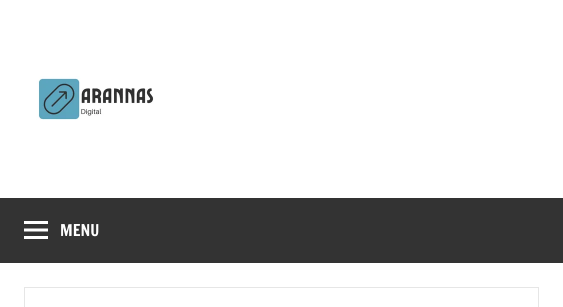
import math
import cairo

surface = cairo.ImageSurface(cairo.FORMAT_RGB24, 563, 307)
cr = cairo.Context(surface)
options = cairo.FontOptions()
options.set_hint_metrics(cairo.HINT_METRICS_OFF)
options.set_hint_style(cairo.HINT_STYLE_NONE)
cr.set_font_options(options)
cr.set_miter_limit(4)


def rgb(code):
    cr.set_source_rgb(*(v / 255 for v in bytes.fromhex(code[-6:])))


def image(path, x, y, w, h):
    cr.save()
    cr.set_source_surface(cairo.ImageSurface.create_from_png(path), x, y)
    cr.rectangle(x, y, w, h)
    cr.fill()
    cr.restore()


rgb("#ffffff")
cr.paint()
image("img/1.png", 36, 76, 118, 44)
rgb("#333333")
cr.rectangle(0, 198, 563, 65)
cr.fill()
image("img/2.png", 24, 221, 24, 18)
cr.rectangle(24.5, 287.5, 514, 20)
rgb("#e6e6e6")
cr.set_line_width(1)
cr.stroke()
cr.select_font_face("Francois One")
cr.set_font_size(16)
rgb("#ffffff")
cr.move_to(60, 236)
cr.show_text("MENU")
surface.write_to_png("page.png")
